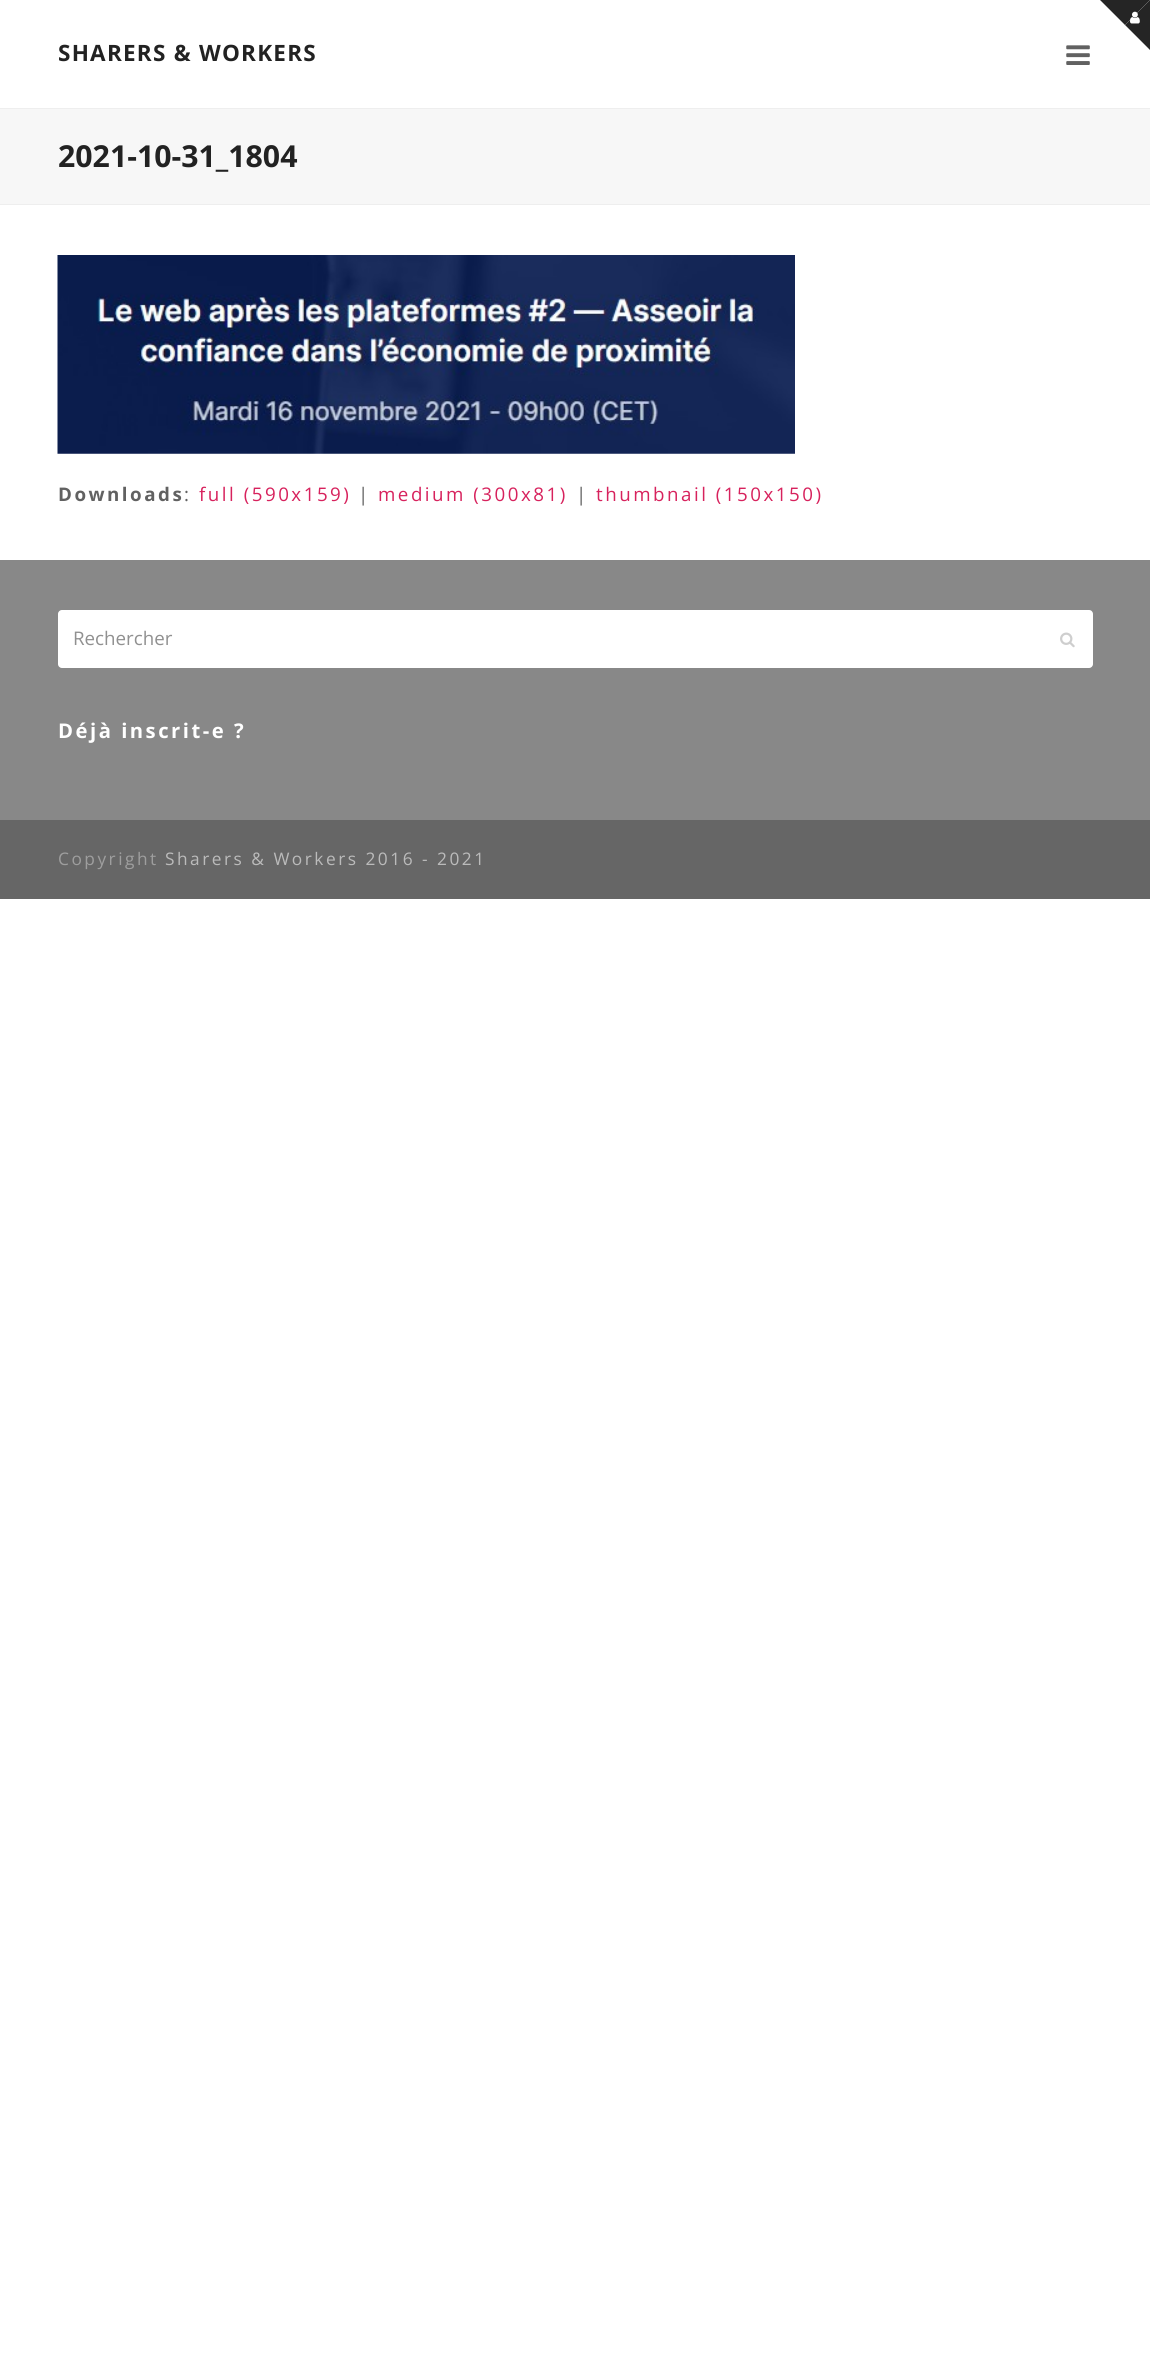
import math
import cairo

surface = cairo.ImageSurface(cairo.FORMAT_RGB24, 1150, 2362)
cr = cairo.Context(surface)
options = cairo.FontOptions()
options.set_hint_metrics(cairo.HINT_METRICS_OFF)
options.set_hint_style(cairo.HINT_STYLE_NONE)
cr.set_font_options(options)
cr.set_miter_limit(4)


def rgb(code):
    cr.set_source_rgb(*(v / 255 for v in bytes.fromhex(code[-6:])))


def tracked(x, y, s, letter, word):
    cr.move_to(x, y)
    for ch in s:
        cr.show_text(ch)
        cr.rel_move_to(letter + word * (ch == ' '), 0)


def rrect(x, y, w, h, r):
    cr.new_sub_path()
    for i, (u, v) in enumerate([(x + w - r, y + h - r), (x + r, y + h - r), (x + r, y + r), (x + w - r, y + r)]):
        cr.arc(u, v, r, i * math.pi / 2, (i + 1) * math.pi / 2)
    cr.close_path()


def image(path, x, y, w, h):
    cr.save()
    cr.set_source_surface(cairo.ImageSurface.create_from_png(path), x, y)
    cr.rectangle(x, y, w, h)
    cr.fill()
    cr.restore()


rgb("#ffffff")
cr.paint()
rgb("#252525")
cr.new_path()
cr.move_to(1100, 0)
cr.line_to(1150, 0)
cr.line_to(1125, 25)
cr.close_path()
cr.fill()
cr.new_path()
cr.move_to(1150, 0)
cr.line_to(1150, 50)
cr.line_to(1125, 25)
cr.close_path()
cr.fill()
image("img/1.png", 1130, 11, 10, 13)
image("img/2.png", 1066, 45, 24, 20)
for x, y, w, h, color in [
    (0, 109, 1150, 95, "#f7f7f7"),
    (0, 108, 1150, 1, "#eeeeee"),
    (0, 204, 1150, 1, "#eeeeee"),
]:
    rgb(color)
    cr.rectangle(x, y, w, h)
    cr.fill()
image("img/3.png", 57, 255, 738, 199)
rgb("#888888")
cr.rectangle(0, 560, 1150, 260)
cr.fill()
rgb("#ffffff")
rrect(58, 610, 1035, 58, 4)
cr.fill()
image("img/4.png", 1060, 632, 15, 16)
rgb("#666666")
cr.rectangle(0, 820, 1150, 79)
cr.fill()
cr.select_font_face("Open Sans", cairo.FONT_SLANT_NORMAL, cairo.FONT_WEIGHT_BOLD)
cr.set_font_size(22.5)
rgb("#222222")
tracked(58, 61, "SHARERS & WORKERS", 1.25, 0)
cr.set_font_size(30.25)
cr.move_to(58, 167)
cr.show_text("2021-10-31_1804")
cr.set_font_size(18.75)
rgb("#616161")
tracked(58, 501, "Downloads", 2.5, 0)
cr.select_font_face("Open Sans")
tracked(184, 501, ":", 2.5, 0)
rgb("#d7225d")
tracked(199, 501, "full (590x159)", 2.5, 0)
rgb("#616161")
tracked(358, 501, "|", 2.5, 0)
rgb("#d7225d")
tracked(378, 501, "medium (300x81)", 2.5, 0)
rgb("#616161")
tracked(576, 501, "|", 2.5, 0)
rgb("#d7225d")
tracked(596, 501, "thumbnail (150x150)", 2.5, 0)
rgb("#909090")
cr.move_to(73, 645)
cr.show_text("Rechercher")
cr.select_font_face("Open Sans", cairo.FONT_SLANT_NORMAL, cairo.FONT_WEIGHT_BOLD)
cr.set_font_size(20.25)
rgb("#ffffff")
tracked(58, 738, "Déjà inscrit-e ?", 2.5, 0)
cr.select_font_face("Open Sans")
cr.set_font_size(17.3)
rgb("#9e9e9e")
tracked(58, 865, "Copyright", 2.5, 0)
rgb("#bbbbbb")
tracked(165, 865, "Sharers & Workers 2016 - 2021", 2.5, 0)
surface.write_to_png("page.png")
